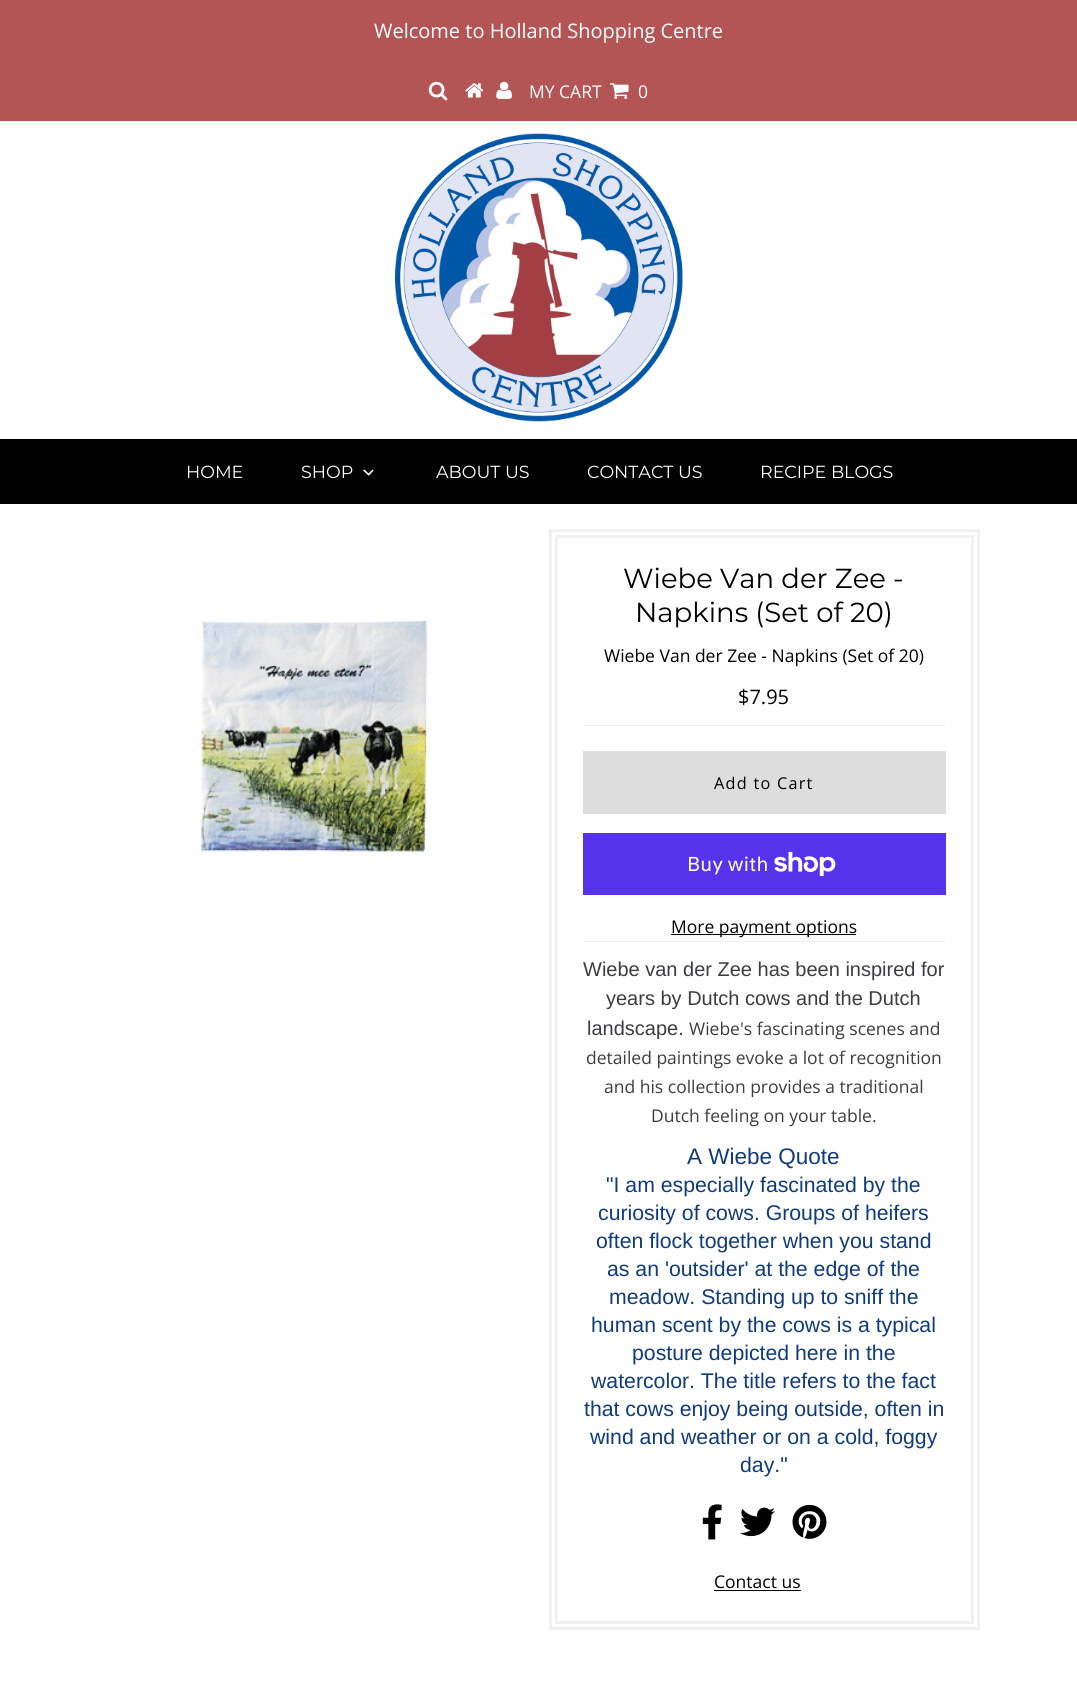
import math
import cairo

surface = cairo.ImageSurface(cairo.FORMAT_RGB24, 1077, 1694)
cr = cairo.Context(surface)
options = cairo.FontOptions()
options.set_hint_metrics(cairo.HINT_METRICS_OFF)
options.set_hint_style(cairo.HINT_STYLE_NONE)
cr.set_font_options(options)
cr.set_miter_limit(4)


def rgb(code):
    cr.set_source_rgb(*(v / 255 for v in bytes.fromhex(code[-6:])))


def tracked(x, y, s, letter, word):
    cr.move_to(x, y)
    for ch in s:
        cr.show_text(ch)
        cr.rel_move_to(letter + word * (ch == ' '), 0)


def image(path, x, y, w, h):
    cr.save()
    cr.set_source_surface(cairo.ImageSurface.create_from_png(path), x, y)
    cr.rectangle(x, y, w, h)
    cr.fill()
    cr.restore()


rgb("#ffffff")
cr.paint()
rgb("#b35555")
cr.rectangle(0, 0, 1077, 121)
cr.fill()
image("img/1.png", 428, 81, 20, 20)
image("img/2.png", 465, 83, 19, 15)
image("img/3.png", 496, 81, 16, 18)
image("img/4.png", 610, 83, 19, 16)
image("img/5.png", 395, 133, 288, 289)
rgb("#000000")
cr.rectangle(0, 439, 1077, 65)
cr.fill()
rgb("#ffffff")
cr.new_path()
cr.move_to(372.5, 469.5)
cr.line_to(373.5, 470.5)
cr.line_to(369, 475.5)
cr.line_to(367.5, 474.5)
cr.close_path()
cr.fill()
cr.new_path()
cr.move_to(364.5, 469.5)
cr.line_to(369.5, 474.5)
cr.line_to(368.5, 475.5)
cr.line_to(363, 470.5)
cr.close_path()
cr.fill()
image("img/6.png", 199, 620, 232, 236)
cr.rectangle(550.5, 530.5, 428, 1098)
rgb("#f0f0f0")
cr.set_line_width(3)
cr.stroke()
cr.rectangle(556.5, 536.5, 416, 1086)
cr.stroke()
for x, y, w, h, color in [
    (583, 941, 363, 1, "#f0f0f0"),
    (583, 725, 363, 1, "#f0f0f0"),
    (583, 751, 363, 63, "#dddddd"),
    (583, 833, 363, 62, "#5433eb"),
]:
    rgb(color)
    cr.rectangle(x, y, w, h)
    cr.fill()
image("img/7.png", 774, 851, 62, 25)
rgb("#000000")
cr.rectangle(671, 934, 185, 1)
cr.fill()
image("img/8.png", 702, 1504, 20, 36)
image("img/9.png", 740, 1507, 35, 30)
image("img/10.png", 792, 1504, 35, 35)
cr.rectangle(714, 1590, 87, 1)
cr.fill()
cr.select_font_face("Open Sans")
cr.set_font_size(20)
rgb("#ffffff")
cr.move_to(374, 38)
cr.show_text("Welcome to Holland Shopping Centre")
cr.set_font_size(17.5)
cr.move_to(529, 98)
cr.show_text("MY CART")
cr.move_to(638, 98)
cr.show_text("0")
cr.select_font_face("Montserrat Thin")
for x, y, s in [
    (186, 478, "HOME"),
    (301, 478, "SHOP"),
    (436, 478, "ABOUT US"),
    (587, 478, "CONTACT US"),
    (760, 478, "RECIPE BLOGS"),
]:
    cr.move_to(x, y)
    cr.show_text(s)
cr.set_font_size(27.5)
rgb("#000000")
cr.move_to(623, 588)
cr.show_text("Wiebe Van der Zee -")
cr.move_to(635, 622)
cr.show_text("Napkins (Set of 20)")
cr.select_font_face("Open Sans")
cr.set_font_size(17.5)
cr.move_to(604, 662)
cr.show_text("Wiebe Van der Zee - Napkins (Set of 20)")
cr.set_font_size(20)
cr.move_to(738, 704)
cr.show_text("$7.95")
cr.set_font_size(16.25)
tracked(714, 789, "Add to Cart", 1.25, 0)
cr.select_font_face("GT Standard")
cr.set_font_size(20)
rgb("#ffffff")
cr.move_to(687, 871)
cr.show_text("Buy with")
cr.select_font_face("Open Sans")
cr.set_font_size(17.5)
rgb("#000000")
cr.move_to(671, 933)
cr.show_text("More payment options")
cr.select_font_face("Liberation Sans")
cr.set_font_size(20)
rgb("#3c3d43")
for x, y, s in [
    (583, 976, "Wiebe van der Zee has been inspired for"),
    (606, 1005, "years by Dutch cows and the Dutch"),
    (587, 1035, "landscape."),
]:
    cr.move_to(x, y)
    cr.show_text(s)
cr.select_font_face("Open Sans")
cr.set_font_size(17.5)
for x, y, s in [
    (689, 1035, "Wiebe's fascinating scenes and"),
    (586, 1064, "detailed paintings evoke a lot of recognition"),
    (604, 1093, "and his collection provides a traditional"),
    (651, 1122, "Dutch feeling on your table."),
]:
    cr.move_to(x, y)
    cr.show_text(s)
cr.select_font_face("Liberation Sans")
cr.set_font_size(22.5)
rgb("#103b7b")
cr.move_to(687, 1164)
cr.show_text("A Wiebe Quote")
cr.set_font_size(21.25)
for x, y, s in [
    (606, 1192, "\"I am especially fascinated by the"),
    (598, 1220, "curiosity of cows. Groups of heifers"),
    (596, 1248, "often flock together when you stand"),
    (607, 1276, "as an 'outsider' at the edge of the"),
    (609, 1304, "meadow. Standing up to sniff the"),
    (591, 1332, "human scent by the cows is a typical"),
    (632, 1360, "posture depicted here in the"),
    (591, 1388, "watercolor. The title refers to the fact"),
    (584, 1416, "that cows enjoy being outside, often in"),
    (590, 1444, "wind and weather or on a cold, foggy"),
    (740, 1472, "day.\""),
]:
    cr.move_to(x, y)
    cr.show_text(s)
cr.select_font_face("Open Sans")
cr.set_font_size(17.5)
rgb("#000000")
cr.move_to(714, 1588)
cr.show_text("Contact us")
surface.write_to_png("page.png")
